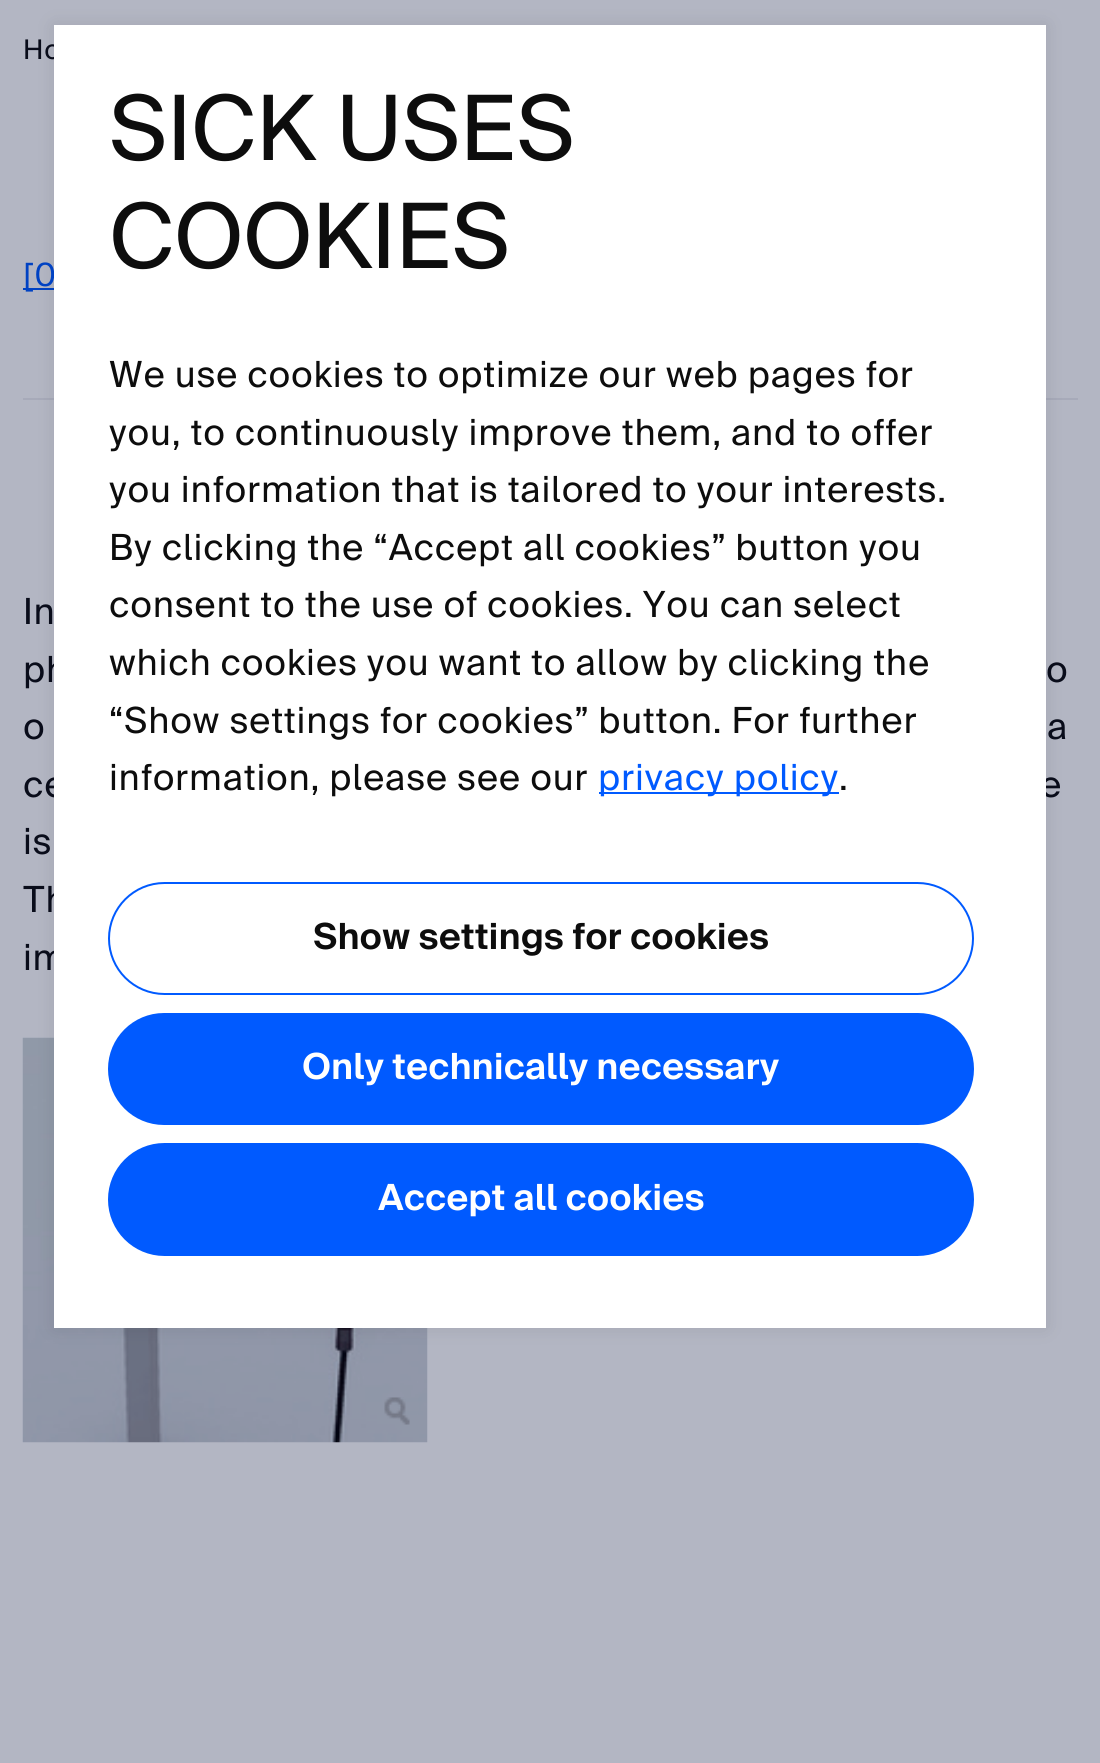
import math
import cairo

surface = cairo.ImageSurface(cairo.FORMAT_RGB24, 1100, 1763)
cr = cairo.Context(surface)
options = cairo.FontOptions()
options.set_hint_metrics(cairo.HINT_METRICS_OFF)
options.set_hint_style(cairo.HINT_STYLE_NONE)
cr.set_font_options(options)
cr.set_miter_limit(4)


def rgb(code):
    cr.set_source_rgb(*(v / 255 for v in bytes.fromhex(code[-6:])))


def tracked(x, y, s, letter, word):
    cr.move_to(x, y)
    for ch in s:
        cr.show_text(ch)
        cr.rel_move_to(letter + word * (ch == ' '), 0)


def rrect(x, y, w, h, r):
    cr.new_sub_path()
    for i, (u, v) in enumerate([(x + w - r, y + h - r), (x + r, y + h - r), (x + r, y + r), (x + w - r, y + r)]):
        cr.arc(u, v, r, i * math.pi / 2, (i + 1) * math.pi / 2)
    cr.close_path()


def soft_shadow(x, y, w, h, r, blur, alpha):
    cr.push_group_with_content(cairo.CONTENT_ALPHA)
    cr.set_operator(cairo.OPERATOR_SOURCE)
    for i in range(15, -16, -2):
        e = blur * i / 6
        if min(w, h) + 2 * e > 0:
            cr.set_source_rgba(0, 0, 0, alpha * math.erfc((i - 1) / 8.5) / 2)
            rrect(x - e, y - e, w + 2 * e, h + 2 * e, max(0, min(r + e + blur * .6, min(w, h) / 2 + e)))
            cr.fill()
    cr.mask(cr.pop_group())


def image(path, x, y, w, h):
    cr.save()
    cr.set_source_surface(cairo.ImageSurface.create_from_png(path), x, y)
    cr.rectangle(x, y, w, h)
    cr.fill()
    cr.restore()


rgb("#b3b6c3")
cr.paint()
rgb("#0042c3")
cr.rectangle(23, 288, 31, 2)
cr.fill()
rgb("#a7aab9")
cr.rectangle(23, 398, 1055, 2)
cr.fill()
image("img/1.png", 22, 1037, 406, 406)
image("img/2.png", 384, 1397, 26, 28)
rgb("#0d0d0d")
soft_shadow(54, 25, 992, 1303, 0, 9, 0.1)
cr.select_font_face("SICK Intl")
cr.set_font_size(27)
rgb("#090c1a")
tracked(23, 59, "Ho", 0.72, 0)
cr.set_font_size(32)
rgb("#0042c3")
tracked(23, 286, "[0", 0.72, 0)
cr.set_font_size(36)
rgb("#090c1a")
for x, y, s in [
    (23, 624, "In"),
    (23, 682, "ph"),
    (1046, 682, "o"),
    (23, 739, "o"),
    (1047, 739, "a"),
    (23, 797, "ce"),
    (1040, 797, "e"),
    (23, 854, "is"),
    (23, 912, "Th"),
    (23, 970, "im"),
]:
    tracked(x, y, s, 0.72, 0)
rgb("#ffffff")
cr.rectangle(54, 25, 992, 1303)
cr.fill()
cr.set_font_size(90)
rgb("#0d0d0d")
tracked(109, 160, "SICK USES", -0.5, 0)
tracked(109, 268, "COOKIES", -0.5, 0)
cr.set_font_size(36)
for x, y, s in [
    (109, 387, "We use cookies to optimize our web pages for"),
    (109, 445, "you, to continuously improve them, and to offer"),
    (109, 502, "you information that is tailored to your interests."),
    (109, 560, "By clicking the “Accept all cookies” button you"),
    (109, 617, "consent to the use of cookies. You can select"),
    (109, 675, "which cookies you want to allow by clicking the"),
    (109, 733, "“Show settings for cookies” button. For further"),
    (109, 790, "information, please see our"),
]:
    tracked(x, y, s, 0.72, 0)
rgb("#005aff")
cr.rectangle(599, 792, 240, 2)
cr.fill()
tracked(598, 790, "privacy policy", 0.72, 0)
rgb("#0d0d0d")
tracked(839, 790, ".", 0.72, 0)
rrect(109, 883, 864, 111, 55.5)
rgb("#005aff")
cr.stroke()
cr.select_font_face("SICK Intl SemiBold")
rgb("#0d0d0d")
cr.move_to(313, 949)
cr.show_text("Show settings for cookies")
rgb("#005aff")
rrect(109, 1014, 864, 110, 55)
cr.fill_preserve()
cr.stroke()
rgb("#ffffff")
cr.move_to(302, 1079)
cr.show_text("Only technically necessary")
rgb("#005aff")
rrect(109, 1144, 864, 111, 55.5)
cr.fill_preserve()
cr.stroke()
rgb("#ffffff")
cr.move_to(378, 1210)
cr.show_text("Accept all cookies")
surface.write_to_png("page.png")
